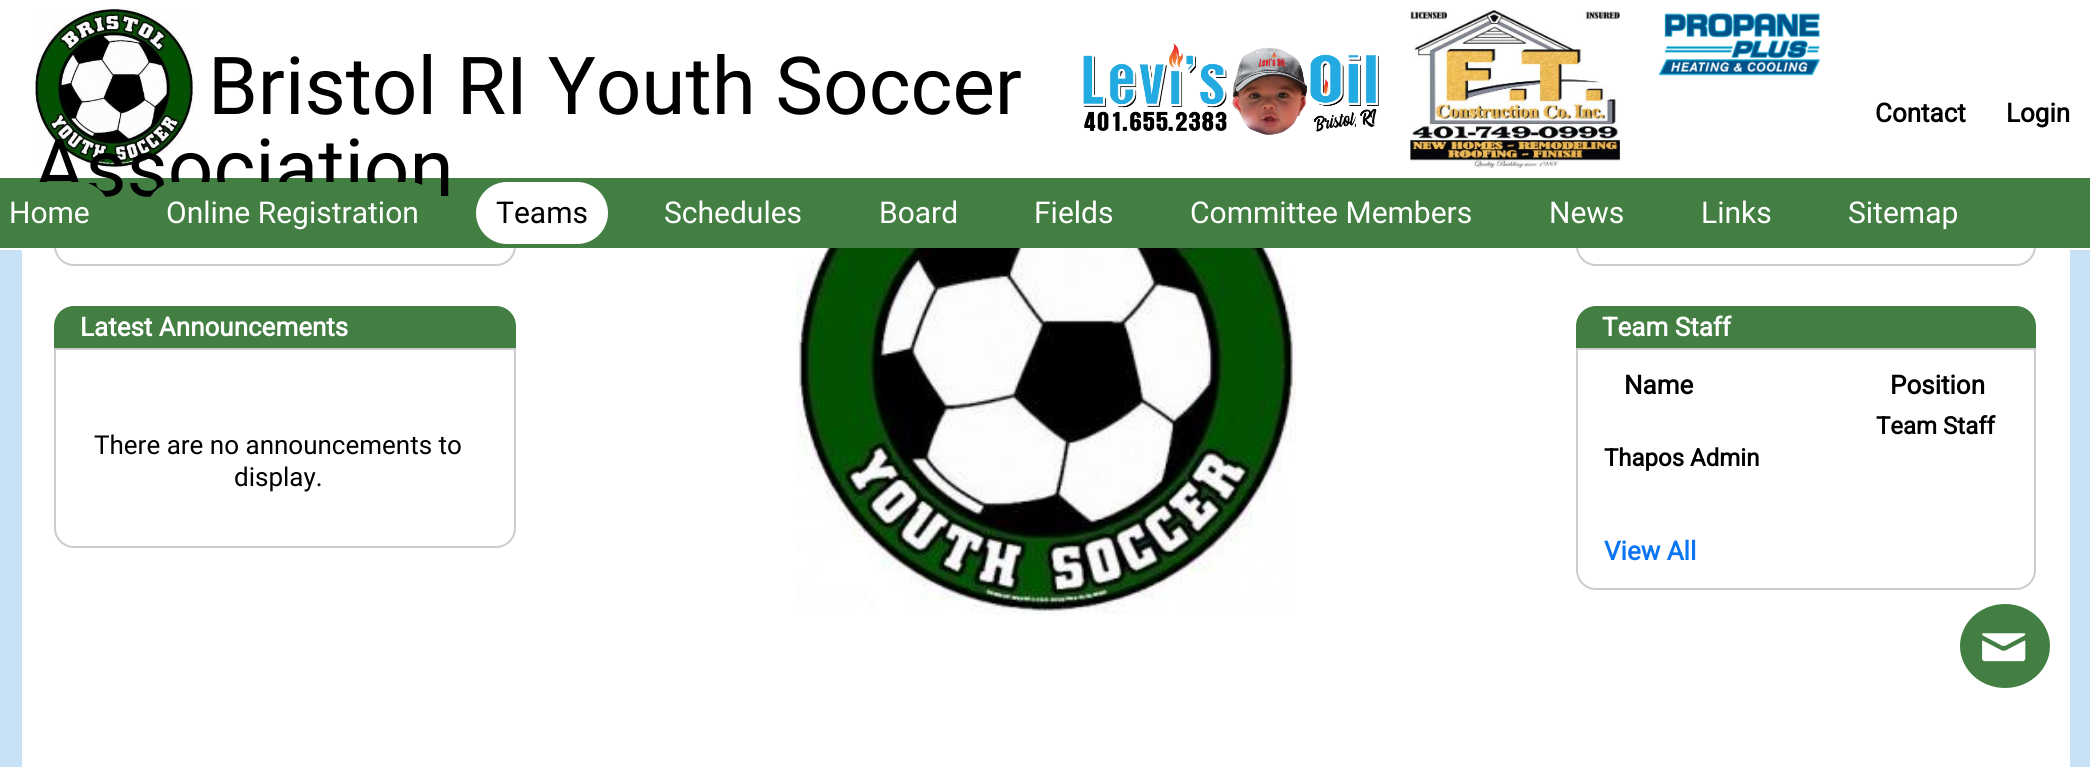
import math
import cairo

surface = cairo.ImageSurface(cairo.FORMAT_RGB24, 2090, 767)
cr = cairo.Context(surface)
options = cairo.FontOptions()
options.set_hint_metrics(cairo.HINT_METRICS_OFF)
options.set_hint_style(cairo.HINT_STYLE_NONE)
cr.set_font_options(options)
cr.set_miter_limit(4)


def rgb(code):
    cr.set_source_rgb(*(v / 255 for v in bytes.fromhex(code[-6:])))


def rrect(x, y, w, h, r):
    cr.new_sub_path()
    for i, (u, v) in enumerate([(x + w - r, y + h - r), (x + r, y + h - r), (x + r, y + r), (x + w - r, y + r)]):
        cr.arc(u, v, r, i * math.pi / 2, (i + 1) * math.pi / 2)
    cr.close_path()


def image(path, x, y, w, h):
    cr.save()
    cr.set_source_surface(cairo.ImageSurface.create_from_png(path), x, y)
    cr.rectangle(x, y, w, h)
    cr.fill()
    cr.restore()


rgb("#ffffff")
cr.paint()
rgb("#c7e1f6")
cr.rectangle(0, 250, 2090, 517)
cr.fill()
rgb("#ffffff")
cr.rectangle(22, 250, 2048, 517)
cr.fill()
cr.new_path()
cr.move_to(55, 67)
cr.line_to(515, 67)
cr.line_to(515, 246)
cr.curve_to(515, 256.5, 506.5, 265, 496, 265)
cr.line_to(74, 265)
cr.curve_to(63.5, 265, 55, 256.5, 55, 246)
cr.close_path()
rgb("#cccccc")
cr.stroke()
cr.new_path()
cr.move_to(1577, 67)
cr.line_to(2035, 67)
cr.line_to(2035, 246)
cr.curve_to(2035, 256.5, 2026.5, 265, 2016, 265)
cr.line_to(1596, 265)
cr.curve_to(1585.5, 265, 1577, 256.5, 1577, 246)
cr.close_path()
cr.stroke()
rgb("#ffffff")
cr.rectangle(54, 66, 1982, 112)
cr.fill()
image("img/1.png", 34, 8, 160, 160)
image("img/2.png", 1083, 43, 296, 92)
image("img/3.png", 1410, 10, 210, 158)
image("img/4.png", 1658, 12, 163, 64)
rgb("#437f43")
cr.rectangle(0, 178, 2090, 70)
cr.fill()
rgb("#ffffff")
rrect(476, 182, 132, 62, 31)
cr.fill()
rgb("#437f43")
cr.new_path()
cr.move_to(74, 306)
cr.line_to(496, 306)
cr.curve_to(507, 306, 516, 315, 516, 326)
cr.line_to(516, 348)
cr.line_to(54, 348)
cr.line_to(54, 326)
cr.curve_to(54, 315, 63, 306, 74, 306)
cr.close_path()
cr.fill()
cr.new_path()
cr.move_to(55, 349)
cr.line_to(515, 349)
cr.line_to(515, 528)
cr.curve_to(515, 538.5, 506.5, 547, 496, 547)
cr.line_to(74, 547)
cr.curve_to(63.5, 547, 55, 538.5, 55, 528)
cr.close_path()
rgb("#cccccc")
cr.stroke()
image("img/5.png", 796, 248, 500, 366)
rgb("#437f43")
cr.new_path()
cr.move_to(1596, 306)
cr.line_to(2016, 306)
cr.curve_to(2027, 306, 2036, 315, 2036, 326)
cr.line_to(2036, 348)
cr.line_to(1576, 348)
cr.line_to(1576, 326)
cr.curve_to(1576, 315, 1585, 306, 1596, 306)
cr.close_path()
cr.fill()
cr.new_path()
cr.move_to(1577, 349)
cr.line_to(2035, 349)
cr.line_to(2035, 570)
cr.curve_to(2035, 580.5, 2026.5, 589, 2016, 589)
cr.line_to(1596, 589)
cr.curve_to(1585.5, 589, 1577, 580.5, 1577, 570)
cr.close_path()
rgb("#cccccc")
cr.stroke()
rgb("#437f43")
cr.new_path()
cr.move_to(2005, 604)
cr.curve_to(2030, 604, 2050, 623, 2050, 646)
cr.curve_to(2050, 669, 2030, 688, 2005, 688)
cr.curve_to(1980, 688, 1960, 669, 1960, 646)
cr.curve_to(1960, 623, 1980, 604, 2005, 604)
cr.close_path()
cr.fill()
image("img/6.png", 1982, 633, 44, 29)
cr.select_font_face("Roboto")
cr.set_font_size(80)
rgb("#000000")
cr.move_to(208, 114)
cr.show_text("Bristol RI Youth Soccer")
cr.move_to(33, 196)
cr.show_text("Association")
cr.select_font_face("Roboto", cairo.FONT_SLANT_NORMAL, cairo.FONT_WEIGHT_BOLD)
cr.set_font_size(26)
cr.move_to(1875, 122)
cr.show_text("Contact")
cr.move_to(2006, 122)
cr.show_text("Login")
rgb("#437f43")
rrect(-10, 182, 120, 62, 31)
cr.fill()
cr.select_font_face("Roboto")
cr.set_font_size(30)
rgb("#ffffff")
cr.move_to(9, 223)
cr.show_text("Home")
rgb("#437f43")
rrect(146, 182, 294, 62, 31)
cr.fill()
rgb("#ffffff")
cr.move_to(166, 223)
cr.show_text("Online Registration")
rgb("#000000")
cr.move_to(496, 223)
cr.show_text("Teams")
rgb("#ffffff")
for x, y, s in [
    (664, 223, "Schedules"),
    (879, 223, "Board"),
    (1034, 223, "Fields"),
    (1190, 223, "Committee Members"),
    (1549, 223, "News"),
    (1701, 223, "Links"),
    (1848, 223, "Sitemap"),
]:
    cr.move_to(x, y)
    cr.show_text(s)
cr.select_font_face("Roboto", cairo.FONT_SLANT_NORMAL, cairo.FONT_WEIGHT_BOLD)
cr.set_font_size(26)
cr.move_to(80, 336)
cr.show_text("Latest Announcements")
cr.select_font_face("Roboto")
rgb("#000000")
cr.move_to(94, 454)
cr.show_text("There are no announcements to")
cr.move_to(234, 486)
cr.show_text("display.")
cr.select_font_face("Roboto", cairo.FONT_SLANT_NORMAL, cairo.FONT_WEIGHT_BOLD)
rgb("#ffffff")
cr.move_to(1602, 336)
cr.show_text("Team Staff")
rgb("#000000")
cr.move_to(1624, 394)
cr.show_text("Name")
cr.move_to(1890, 394)
cr.show_text("Position")
cr.set_font_size(24)
cr.move_to(1876, 434)
cr.show_text("Team Staff")
cr.move_to(1604, 466)
cr.show_text("Thapos Admin")
cr.set_font_size(26)
rgb("#0a76f2")
cr.move_to(1604, 560)
cr.show_text("View All")
surface.write_to_png("page.png")
